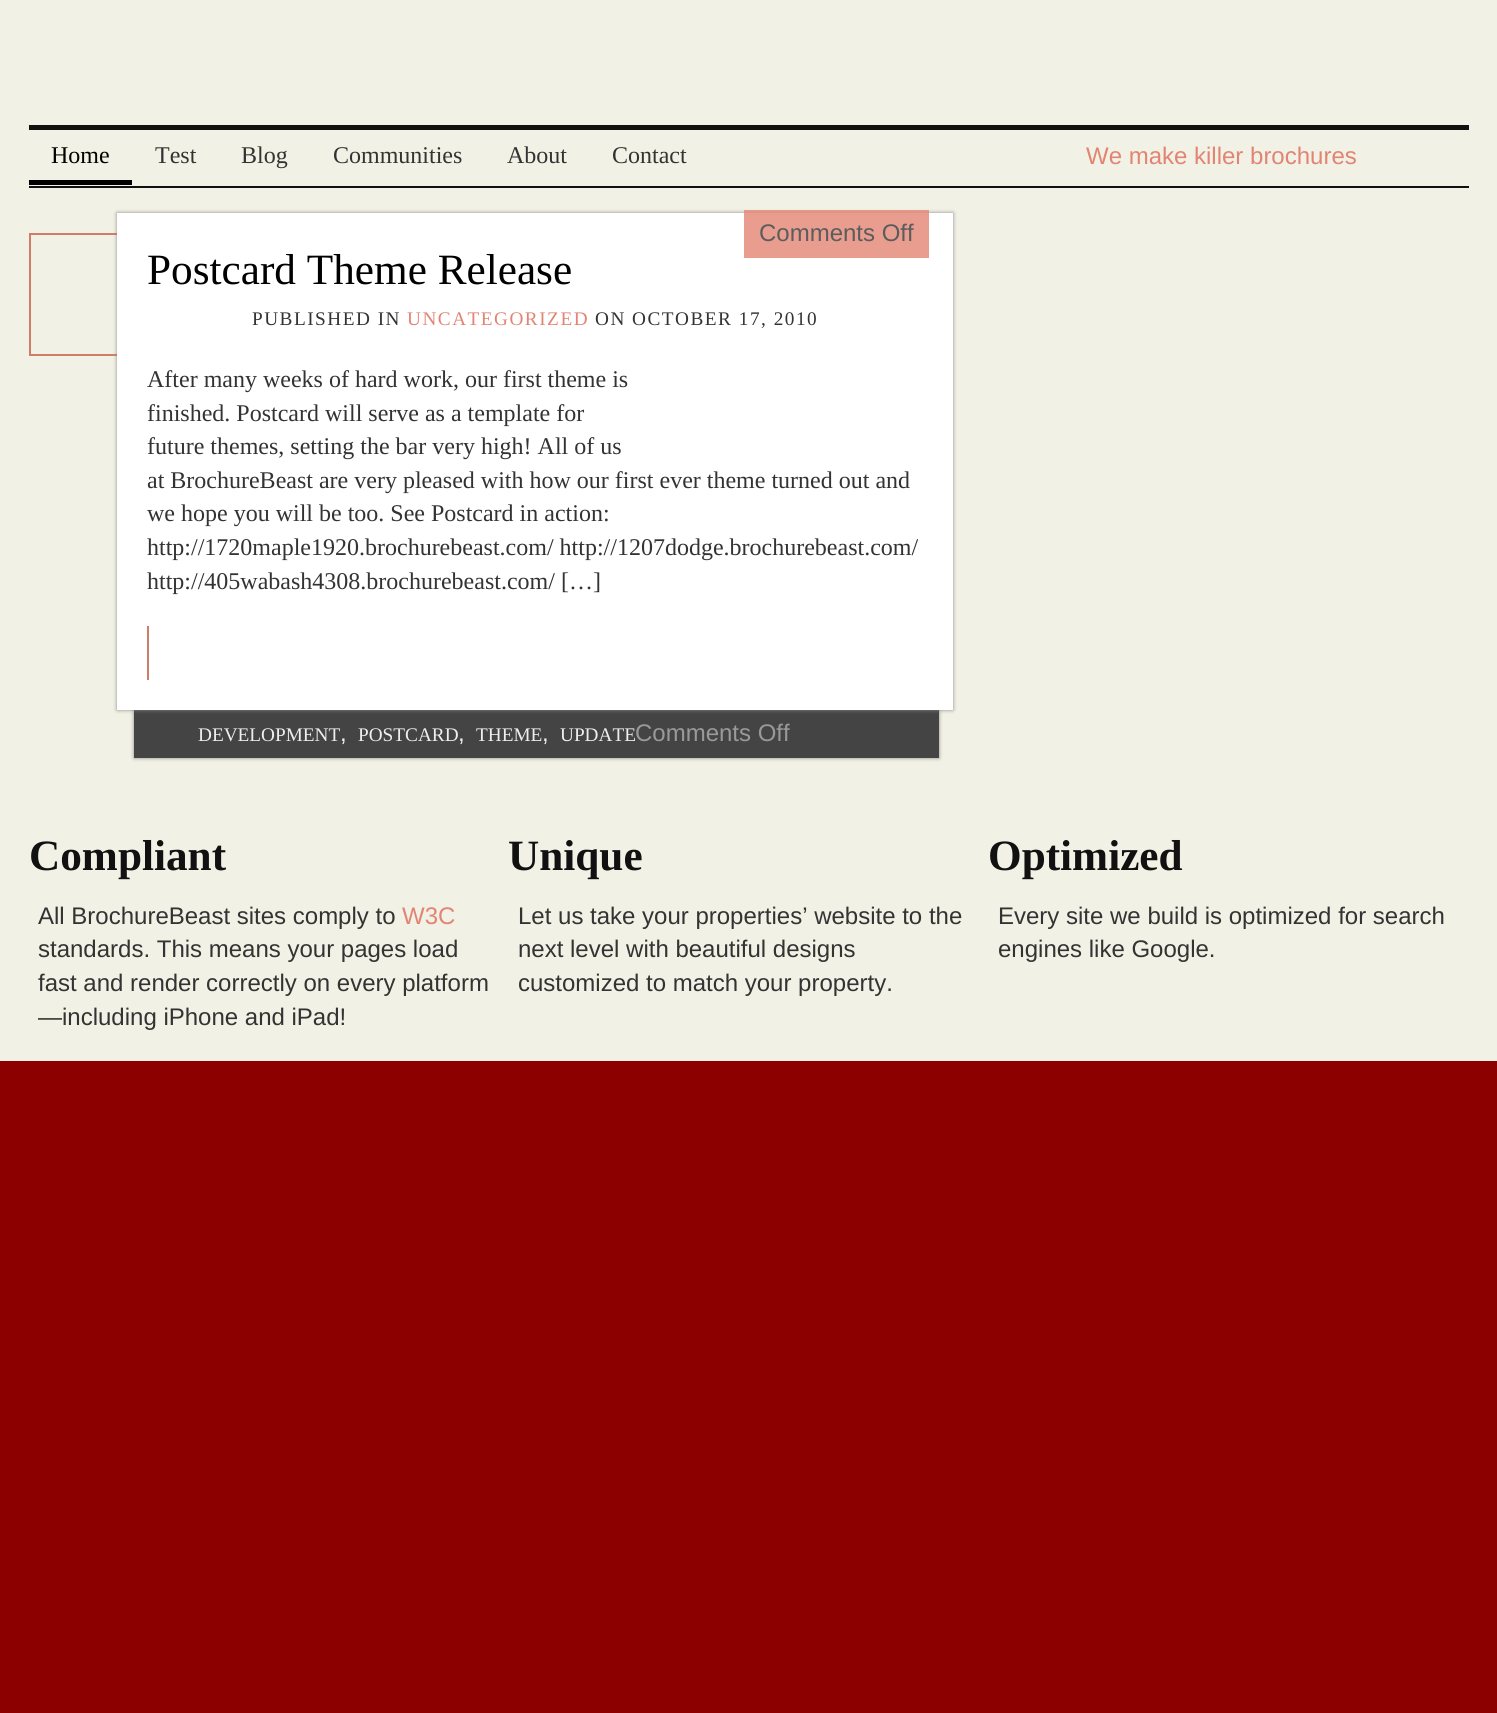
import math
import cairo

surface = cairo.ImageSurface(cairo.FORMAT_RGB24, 1497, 1713)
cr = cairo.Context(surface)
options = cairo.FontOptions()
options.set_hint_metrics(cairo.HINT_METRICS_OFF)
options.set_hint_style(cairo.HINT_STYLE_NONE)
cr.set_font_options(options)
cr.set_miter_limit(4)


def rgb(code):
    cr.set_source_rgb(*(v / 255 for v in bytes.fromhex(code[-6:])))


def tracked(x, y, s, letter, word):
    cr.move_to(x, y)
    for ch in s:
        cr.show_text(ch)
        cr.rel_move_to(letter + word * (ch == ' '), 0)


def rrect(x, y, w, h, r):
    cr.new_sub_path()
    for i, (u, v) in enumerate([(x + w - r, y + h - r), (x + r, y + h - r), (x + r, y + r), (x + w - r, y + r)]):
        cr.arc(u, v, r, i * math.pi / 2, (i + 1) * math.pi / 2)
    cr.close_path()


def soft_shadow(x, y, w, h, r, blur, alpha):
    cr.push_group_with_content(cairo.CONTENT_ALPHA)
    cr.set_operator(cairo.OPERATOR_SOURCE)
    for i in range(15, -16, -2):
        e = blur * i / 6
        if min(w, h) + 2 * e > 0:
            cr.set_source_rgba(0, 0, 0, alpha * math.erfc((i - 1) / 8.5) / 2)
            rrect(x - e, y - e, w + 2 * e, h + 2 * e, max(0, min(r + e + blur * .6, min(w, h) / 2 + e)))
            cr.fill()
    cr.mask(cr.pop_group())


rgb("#8d0000")
cr.paint()
for x, y, w, h, color in [
    (0, 0, 1497, 1061, "#f1f1e5"),
    (29, 125, 1440, 5, "#111111"),
    (29, 186, 1440, 2, "#111111"),
    (29, 180, 103, 5, "#000000"),
]:
    rgb(color)
    cr.rectangle(x, y, w, h)
    cr.fill()
cr.rectangle(30, 234, 91, 121)
rgb("#d07d67")
cr.stroke()
rgb("#888888")
soft_shadow(134, 710, 805, 48, 0, 2, 1)
rgb("#444444")
cr.rectangle(134, 710, 805, 48)
cr.fill()
rgb("#888888")
soft_shadow(117, 213, 836, 497, 0, 2, 1)
rgb("#ffffff")
cr.rectangle(117, 213, 836, 497)
cr.fill()
cr.set_source_rgba(0.886, 0.518, 0.451, 0.8)
cr.rectangle(744, 210, 185, 48)
cr.fill()
rgb("#d07d67")
cr.rectangle(147, 626, 2, 54)
cr.fill()
cr.select_font_face("Liberation Serif")
cr.set_font_size(24)
rgb("#000000")
cr.move_to(51, 163)
cr.show_text("Home")
rgb("#333333")
for x, y, s in [
    (155, 163, "Test"),
    (241, 163, "Blog"),
    (333, 163, "Communities"),
    (507, 163, "About"),
    (612, 163, "Contact"),
]:
    cr.move_to(x, y)
    cr.show_text(s)
cr.select_font_face("Liberation Sans")
rgb("#e28473")
cr.move_to(1086, 164)
cr.show_text("We make killer brochures")
rgb("#5c5c5c")
cr.move_to(759, 241)
cr.show_text("Comments Off")
cr.select_font_face("Liberation Serif")
cr.set_font_size(43.25)
rgb("#000000")
cr.move_to(147, 284)
cr.show_text("Postcard Theme Release")
cr.set_font_size(19.25)
rgb("#333333")
tracked(252, 325, "PUBLISHED IN", 1.5, 0)
rgb("#e28473")
tracked(407, 325, "UNCATEGORIZED", 1.5, 0)
rgb("#333333")
tracked(595, 325, "ON OCTOBER 17, 2010", 1.5, 0)
cr.set_font_size(24)
for x, y, s in [
    (147, 387, "After many weeks of hard work, our first theme is"),
    (147, 421, "finished. Postcard will serve as a template for"),
    (147, 454, "future themes, setting the bar very high! All of us"),
    (147, 488, "at BrochureBeast are very pleased with how our first ever theme turned out and"),
    (147, 521, "we hope you will be too. See Postcard in action:"),
    (147, 555, "http://1720maple1920.brochurebeast.com/ http://1207dodge.brochurebeast.com/"),
    (147, 589, "http://405wabash4308.brochurebeast.com/ […]"),
]:
    cr.move_to(x, y)
    cr.show_text(s)
cr.set_font_size(19.25)
rgb("#eeeeee")
cr.move_to(198, 741)
cr.show_text("DEVELOPMENT")
cr.select_font_face("Liberation Sans")
cr.set_font_size(24)
cr.move_to(340, 741)
cr.show_text(",")
cr.select_font_face("Liberation Serif")
cr.set_font_size(19.25)
cr.move_to(358, 741)
cr.show_text("POSTCARD")
cr.select_font_face("Liberation Sans")
cr.set_font_size(24)
cr.move_to(458, 741)
cr.show_text(",")
cr.select_font_face("Liberation Serif")
cr.set_font_size(19.25)
cr.move_to(476, 741)
cr.show_text("THEME")
cr.select_font_face("Liberation Sans")
cr.set_font_size(24)
cr.move_to(542, 741)
cr.show_text(",")
cr.select_font_face("Liberation Serif")
cr.set_font_size(19.25)
cr.move_to(560, 741)
cr.show_text("UPDATE")
cr.select_font_face("Liberation Sans")
cr.set_font_size(24)
rgb("#999999")
cr.move_to(635, 741)
cr.show_text("Comments Off")
cr.select_font_face("Liberation Serif", cairo.FONT_SLANT_NORMAL, cairo.FONT_WEIGHT_BOLD)
cr.set_font_size(43.25)
rgb("#111111")
cr.move_to(29, 870)
cr.show_text("Compliant")
cr.select_font_face("Liberation Sans")
cr.set_font_size(24)
rgb("#333333")
cr.move_to(38, 924)
cr.show_text("All BrochureBeast sites comply to")
rgb("#e28473")
cr.move_to(402, 924)
cr.show_text("W3C")
rgb("#333333")
for x, y, s in [
    (38, 957, "standards. This means your pages load"),
    (38, 991, "fast and render correctly on every platform"),
    (38, 1025, "—including iPhone and iPad!"),
]:
    cr.move_to(x, y)
    cr.show_text(s)
cr.select_font_face("Liberation Serif", cairo.FONT_SLANT_NORMAL, cairo.FONT_WEIGHT_BOLD)
cr.set_font_size(43.25)
rgb("#111111")
cr.move_to(508, 870)
cr.show_text("Unique")
cr.select_font_face("Liberation Sans")
cr.set_font_size(24)
rgb("#333333")
for x, y, s in [
    (518, 924, "Let us take your properties’ website to the"),
    (518, 957, "next level with beautiful designs"),
    (518, 991, "customized to match your property."),
]:
    cr.move_to(x, y)
    cr.show_text(s)
cr.select_font_face("Liberation Serif", cairo.FONT_SLANT_NORMAL, cairo.FONT_WEIGHT_BOLD)
cr.set_font_size(43.25)
rgb("#111111")
cr.move_to(988, 870)
cr.show_text("Optimized")
cr.select_font_face("Liberation Sans")
cr.set_font_size(24)
rgb("#333333")
cr.move_to(998, 924)
cr.show_text("Every site we build is optimized for search")
cr.move_to(998, 957)
cr.show_text("engines like Google.")
surface.write_to_png("page.png")
